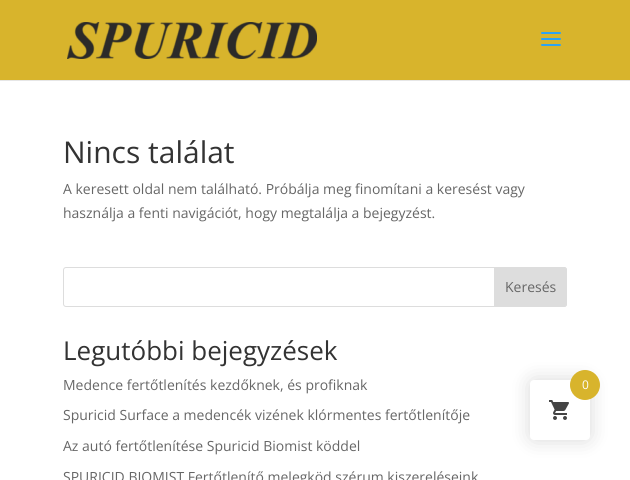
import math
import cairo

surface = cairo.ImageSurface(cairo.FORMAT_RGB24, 630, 480)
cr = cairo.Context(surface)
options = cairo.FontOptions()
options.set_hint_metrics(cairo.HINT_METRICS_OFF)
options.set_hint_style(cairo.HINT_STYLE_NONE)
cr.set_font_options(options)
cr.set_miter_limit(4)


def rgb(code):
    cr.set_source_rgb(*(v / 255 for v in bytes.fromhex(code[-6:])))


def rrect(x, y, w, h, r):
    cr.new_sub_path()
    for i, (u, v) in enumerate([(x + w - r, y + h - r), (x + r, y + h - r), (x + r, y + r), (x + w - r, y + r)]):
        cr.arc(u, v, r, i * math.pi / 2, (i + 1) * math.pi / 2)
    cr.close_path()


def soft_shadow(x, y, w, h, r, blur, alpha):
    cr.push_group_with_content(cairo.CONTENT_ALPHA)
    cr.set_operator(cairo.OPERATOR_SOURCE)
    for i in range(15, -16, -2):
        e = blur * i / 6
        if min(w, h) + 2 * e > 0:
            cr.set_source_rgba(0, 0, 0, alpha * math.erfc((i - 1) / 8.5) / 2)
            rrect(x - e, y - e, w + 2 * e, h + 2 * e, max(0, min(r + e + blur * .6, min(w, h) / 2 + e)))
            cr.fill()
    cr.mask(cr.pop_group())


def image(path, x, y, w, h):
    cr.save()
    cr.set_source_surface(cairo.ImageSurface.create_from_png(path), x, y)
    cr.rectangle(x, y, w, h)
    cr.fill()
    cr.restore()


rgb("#ffffff")
cr.paint()
rgb("#e6e6e6")
cr.rectangle(0, 80, 630, 1)
cr.fill()
rgb("#d8b42c")
cr.rectangle(0, 0, 630, 80)
cr.fill()
image("img/1.png", 67, 22, 250, 37)
image("img/2.png", 541, 32, 20, 14)
rrect(63.5, 267.5, 503, 39, 2.5)
rgb("#dddddd")
cr.set_line_width(1)
cr.stroke()
cr.new_path()
cr.move_to(494.5, 267.5)
cr.line_to(564, 267.5)
cr.curve_to(565.5, 267.5, 566.5, 268.5, 566.5, 270)
cr.line_to(566.5, 304)
cr.curve_to(566.5, 305.5, 565.5, 306.5, 564, 306.5)
cr.line_to(494.5, 306.5)
cr.close_path()
cr.fill_preserve()
cr.stroke()
rgb("#000000")
soft_shadow(530, 380, 60, 60, 4, 10, 0.15)
rgb("#ffffff")
rrect(530, 380, 60, 60, 4)
cr.fill()
rgb("#d8b42c")
cr.arc(585, 385, 15, 0, 2 * math.pi)
cr.fill()
image("img/3.png", 549, 400, 20, 20)
cr.select_font_face("Open Sans")
cr.set_font_size(30)
rgb("#333333")
cr.move_to(63, 163)
cr.show_text("Nincs találat")
cr.set_font_size(14)
rgb("#666666")
for x, y, s in [
    (63, 194, "A keresett oldal nem található. Próbálja meg finomítani a keresést vagy"),
    (63, 218, "használja a fenti navigációt, hogy megtalálja a bejegyzést."),
    (505, 292, "Keresés"),
]:
    cr.move_to(x, y)
    cr.show_text(s)
cr.set_font_size(26)
rgb("#333333")
cr.move_to(63, 360)
cr.show_text("Legutóbbi bejegyzések")
cr.set_font_size(14)
rgb("#666666")
for x, y, s in [
    (63, 390, "Medence fertőtlenítés kezdőknek, és profiknak"),
    (63, 420, "Spuricid Surface a medencék vizének klórmentes fertőtlenítője"),
    (63, 451, "Az autó fertőtlenítése Spuricid Biomist köddel"),
    (63, 482, "SPURICID BIOMIST Fertőtlenítő melegköd szérum kiszereléseink"),
]:
    cr.move_to(x, y)
    cr.show_text(s)
cr.set_font_size(12)
rgb("#ffffff")
cr.move_to(582, 389)
cr.show_text("0")
surface.write_to_png("page.png")
